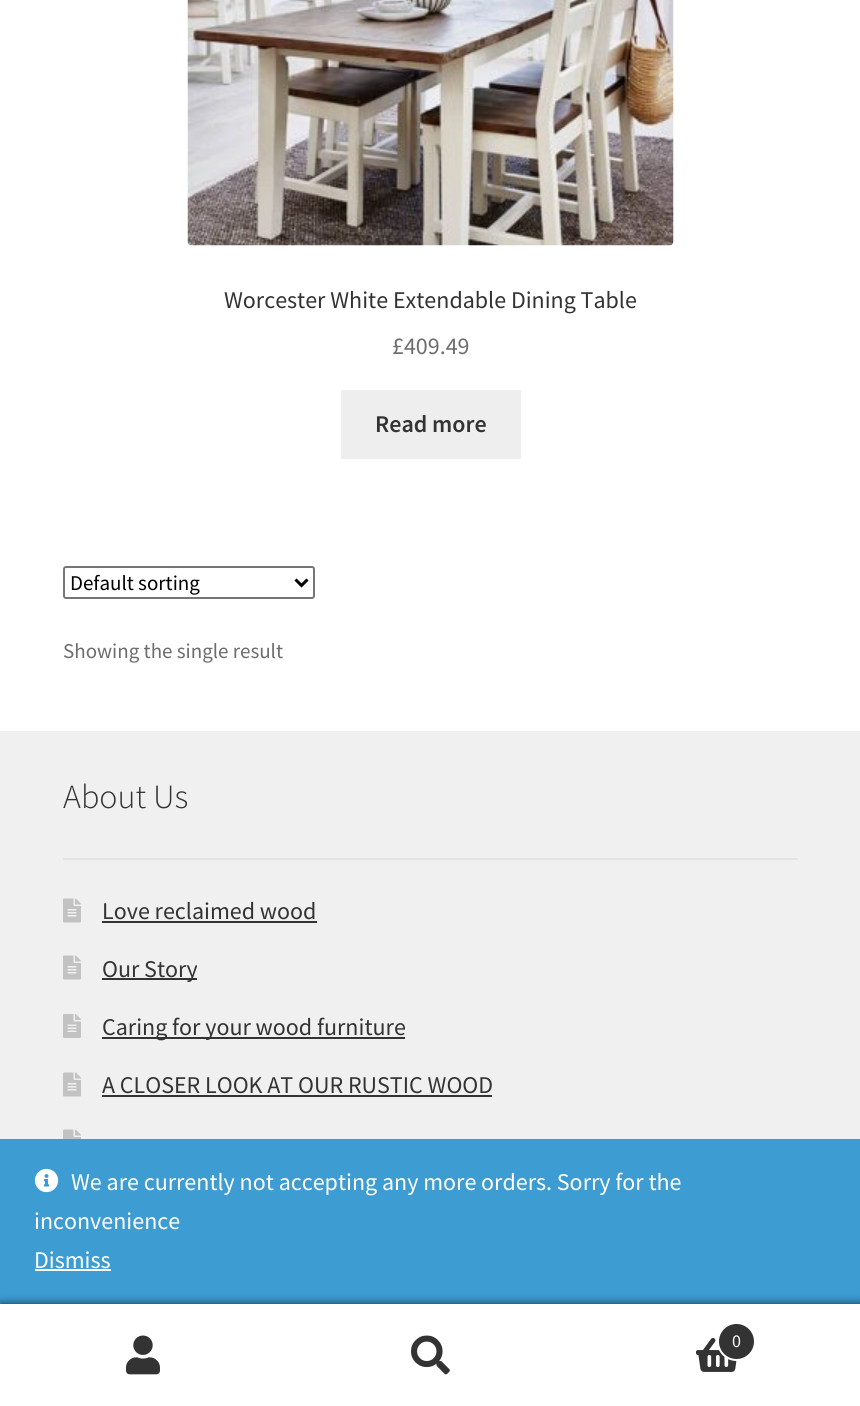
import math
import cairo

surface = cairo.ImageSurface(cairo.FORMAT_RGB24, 860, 1406)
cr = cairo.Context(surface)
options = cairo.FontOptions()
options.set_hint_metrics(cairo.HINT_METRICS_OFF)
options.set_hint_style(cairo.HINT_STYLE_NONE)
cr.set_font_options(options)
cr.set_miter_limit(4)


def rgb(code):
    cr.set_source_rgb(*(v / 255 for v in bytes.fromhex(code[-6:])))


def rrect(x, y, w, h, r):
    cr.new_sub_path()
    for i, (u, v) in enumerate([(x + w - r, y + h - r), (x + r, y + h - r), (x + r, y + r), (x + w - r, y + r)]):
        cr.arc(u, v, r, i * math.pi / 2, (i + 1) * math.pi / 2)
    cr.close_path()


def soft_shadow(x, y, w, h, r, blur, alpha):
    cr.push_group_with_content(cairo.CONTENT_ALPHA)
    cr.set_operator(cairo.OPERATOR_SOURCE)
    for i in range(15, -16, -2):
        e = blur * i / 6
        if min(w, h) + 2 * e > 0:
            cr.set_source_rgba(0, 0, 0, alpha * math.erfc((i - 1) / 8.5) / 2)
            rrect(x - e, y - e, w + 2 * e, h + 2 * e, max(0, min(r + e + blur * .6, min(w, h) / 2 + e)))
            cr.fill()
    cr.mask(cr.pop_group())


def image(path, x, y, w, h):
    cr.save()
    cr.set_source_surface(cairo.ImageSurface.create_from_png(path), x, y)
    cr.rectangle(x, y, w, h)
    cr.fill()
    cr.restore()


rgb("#ffffff")
cr.paint()
image("img/1.png", 187, 0, 487, 246)
rgb("#eeeeee")
cr.rectangle(341, 390, 180, 69)
cr.fill()
rrect(64, 567, 250, 31, 2)
rgb("#767676")
cr.stroke()
cr.new_path()
cr.move_to(295.5, 579.5)
cr.line_to(301.5, 585.5)
cr.line_to(307.5, 579.5)
rgb("#000000")
cr.set_line_width(3)
cr.stroke()
rgb("#f0f0f0")
cr.rectangle(0, 731, 860, 408)
cr.fill()
rgb("#e4e4e4")
cr.rectangle(63, 858, 735, 2)
cr.fill()
image("img/2.png", 63, 898, 18, 25)
rgb("#333333")
cr.rectangle(102, 921, 215, 2)
cr.fill()
image("img/2.png", 63, 955, 18, 25)
cr.rectangle(102, 978, 95, 2)
cr.fill()
image("img/3.png", 63, 1014, 18, 24)
cr.rectangle(102, 1037, 303, 2)
cr.fill()
image("img/2.png", 63, 1072, 18, 25)
cr.rectangle(102, 1095, 390, 2)
cr.fill()
image("img/4.png", 63, 1129, 18, 10)
rgb("#3d9cd2")
cr.rectangle(0, 1139, 860, 165)
cr.fill()
rgb("#000000")
soft_shadow(0, 1304, 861, 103, 0, 4.5, 0.7)
rgb("#ffffff")
cr.rectangle(0, 1304, 860, 1)
cr.fill()
cr.rectangle(0, 1305, 860, 101)
cr.fill()
image("img/5.png", 126, 1335, 34, 40)
image("img/6.png", 411, 1335, 39, 40)
image("img/7.png", 696, 1337, 41, 35)
rgb("#333333")
cr.arc(736.5, 1341.5, 18.5, 0, 2 * math.pi)
cr.fill_preserve()
rgb("#ffffff")
cr.set_line_width(2)
cr.stroke()
image("img/8.png", 34, 1168, 25, 25)
cr.rectangle(35, 1269, 76, 2)
cr.fill()
cr.select_font_face("Source Sans Pro")
cr.set_font_size(24)
rgb("#333333")
cr.move_to(224, 308)
cr.show_text("Worcester White Extendable Dining Table")
rgb("#6d6d6d")
cr.move_to(392, 354)
cr.show_text("£409.49")
cr.select_font_face("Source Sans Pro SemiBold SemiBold")
rgb("#333333")
cr.move_to(375, 432)
cr.show_text("Read more")
cr.select_font_face("Source Sans Pro")
cr.set_font_size(21)
rgb("#000000")
cr.move_to(70, 590)
cr.show_text("Default sorting")
rgb("#6d6d6d")
cr.move_to(63, 658)
cr.show_text("Showing the single result")
cr.select_font_face("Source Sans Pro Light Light")
cr.set_font_size(34)
rgb("#333333")
cr.move_to(63, 808)
cr.show_text("About Us")
cr.select_font_face("Source Sans Pro")
cr.set_font_size(24)
for x, y, s in [
    (102, 919, "Love reclaimed wood"),
    (102, 977, "Our Story"),
    (102, 1035, "Caring for your wood furniture"),
    (102, 1093, "A CLOSER LOOK AT OUR RUSTIC WOOD"),
]:
    cr.move_to(x, y)
    cr.show_text(s)
cr.set_font_size(18)
rgb("#ffffff")
cr.move_to(732, 1347)
cr.show_text("0")
cr.set_font_size(24)
for x, y, s in [
    (71, 1190, "We are currently not accepting any more orders. Sorry for the"),
    (34, 1229, "inconvenience"),
    (34, 1268, "Dismiss"),
]:
    cr.move_to(x, y)
    cr.show_text(s)
surface.write_to_png("page.png")
